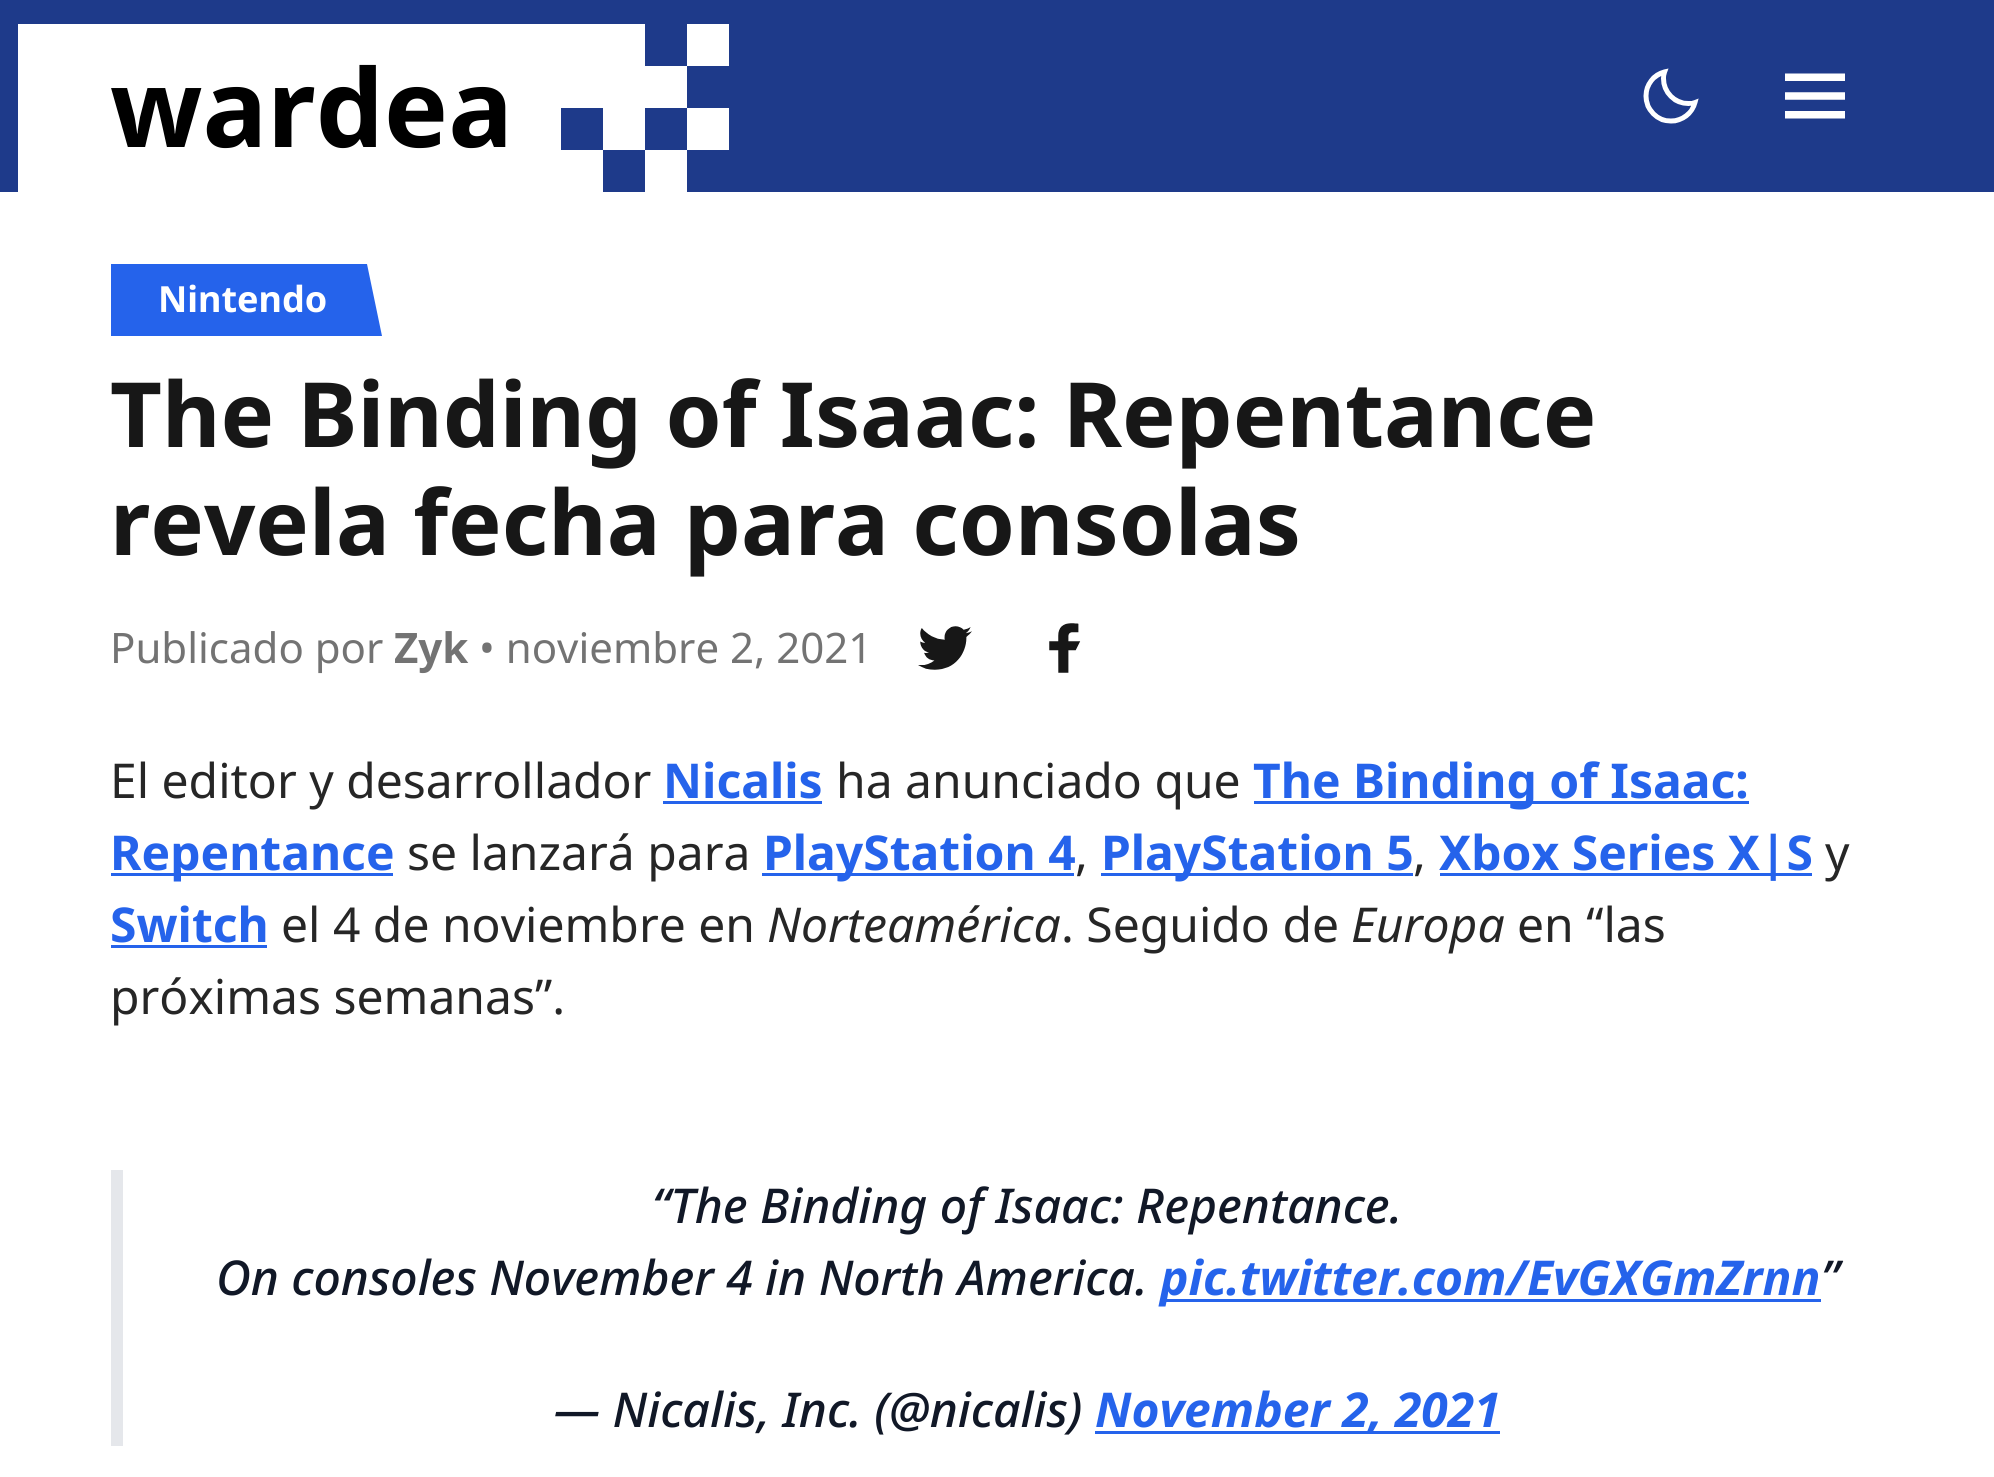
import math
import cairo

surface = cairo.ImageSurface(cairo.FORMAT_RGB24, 1994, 1477)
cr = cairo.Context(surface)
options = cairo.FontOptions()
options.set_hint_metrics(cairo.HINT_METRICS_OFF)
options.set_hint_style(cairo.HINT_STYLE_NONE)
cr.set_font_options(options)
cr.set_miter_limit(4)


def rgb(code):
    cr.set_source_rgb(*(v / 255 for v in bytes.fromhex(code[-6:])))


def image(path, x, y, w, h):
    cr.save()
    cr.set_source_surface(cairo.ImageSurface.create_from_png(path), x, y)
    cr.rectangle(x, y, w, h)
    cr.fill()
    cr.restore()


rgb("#ffffff")
cr.paint()
rgb("#1e3a8a")
cr.rectangle(0, 0, 1994, 192)
cr.fill()
rgb("#ffffff")
cr.rectangle(18, 24, 543, 168)
cr.fill()
image("img/1.png", 561, 24, 168, 168)
image("img/2.png", 1643, 68, 56, 56)
image("img/3.png", 1785, 73, 60, 46)
rgb("#2563eb")
cr.rectangle(111, 264, 235, 72)
cr.fill()
cr.new_path()
cr.move_to(331, 264)
cr.line_to(367, 264)
cr.line_to(382, 336)
cr.line_to(346, 336)
cr.close_path()
cr.fill()
image("img/4.png", 918, 626, 54, 44)
image("img/5.png", 1049, 623, 32, 50)
for x, y, w, h, color in [
    (663, 801, 159, 3, "#2563eb"),
    (1254, 801, 495, 3, "#2563eb"),
    (111, 873, 282, 3, "#2563eb"),
    (762, 873, 312, 3, "#2563eb"),
    (1101, 873, 312, 3, "#2563eb"),
    (1440, 873, 372, 3, "#2563eb"),
    (111, 945, 156, 3, "#2563eb"),
    (111, 1170, 12, 276, "#e5e7eb"),
    (1161, 1299, 660, 3, "#2563eb"),
    (1095, 1431, 405, 3, "#2563eb"),
]:
    rgb(color)
    cr.rectangle(x, y, w, h)
    cr.fill()
cr.select_font_face("Noto Sans", cairo.FONT_SLANT_NORMAL, cairo.FONT_WEIGHT_BOLD)
cr.set_font_size(108)
rgb("#000000")
cr.move_to(110, 147)
cr.show_text("wardea")
cr.set_font_size(36)
rgb("#ffffff")
cr.move_to(158, 312)
cr.show_text("Nintendo")
cr.set_font_size(90)
rgb("#171717")
cr.move_to(110, 447)
cr.show_text("The Binding of Isaac: Repentance")
cr.move_to(110, 555)
cr.show_text("revela fecha para consolas")
cr.select_font_face("Noto Sans")
cr.set_font_size(42)
rgb("#737373")
cr.move_to(110, 663)
cr.show_text("Publicado por")
cr.select_font_face("Noto Sans", cairo.FONT_SLANT_NORMAL, cairo.FONT_WEIGHT_BOLD)
cr.move_to(394, 663)
cr.show_text("Zyk")
cr.select_font_face("Noto Sans")
cr.move_to(479, 663)
cr.show_text("• noviembre 2, 2021")
cr.set_font_size(48)
rgb("#262626")
cr.move_to(110, 798)
cr.show_text("El editor y desarrollador")
cr.select_font_face("Noto Sans", cairo.FONT_SLANT_NORMAL, cairo.FONT_WEIGHT_BOLD)
rgb("#2563eb")
cr.move_to(663, 798)
cr.show_text("Nicalis")
cr.select_font_face("Noto Sans")
rgb("#262626")
cr.move_to(836, 798)
cr.show_text("ha anunciado que")
cr.select_font_face("Noto Sans", cairo.FONT_SLANT_NORMAL, cairo.FONT_WEIGHT_BOLD)
rgb("#2563eb")
cr.move_to(1253, 798)
cr.show_text("The Binding of Isaac:")
cr.move_to(110, 870)
cr.show_text("Repentance")
cr.select_font_face("Noto Sans")
rgb("#262626")
cr.move_to(407, 870)
cr.show_text("se lanzará para")
cr.select_font_face("Noto Sans", cairo.FONT_SLANT_NORMAL, cairo.FONT_WEIGHT_BOLD)
rgb("#2563eb")
cr.move_to(763, 870)
cr.show_text("PlayStation 4")
cr.select_font_face("Noto Sans")
rgb("#262626")
cr.move_to(1075, 870)
cr.show_text(",")
cr.select_font_face("Noto Sans", cairo.FONT_SLANT_NORMAL, cairo.FONT_WEIGHT_BOLD)
rgb("#2563eb")
cr.move_to(1101, 870)
cr.show_text("PlayStation 5")
cr.select_font_face("Noto Sans")
rgb("#262626")
cr.move_to(1413, 870)
cr.show_text(",")
cr.select_font_face("Noto Sans", cairo.FONT_SLANT_NORMAL, cairo.FONT_WEIGHT_BOLD)
rgb("#2563eb")
cr.move_to(1439, 870)
cr.show_text("Xbox Series X|S")
cr.select_font_face("Noto Sans")
rgb("#262626")
cr.move_to(1825, 870)
cr.show_text("y")
cr.select_font_face("Noto Sans", cairo.FONT_SLANT_NORMAL, cairo.FONT_WEIGHT_BOLD)
rgb("#2563eb")
cr.move_to(110, 942)
cr.show_text("Switch")
cr.select_font_face("Noto Sans")
rgb("#262626")
cr.move_to(281, 942)
cr.show_text("el 4 de noviembre en")
cr.select_font_face("Noto Sans", cairo.FONT_SLANT_ITALIC)
cr.move_to(767, 942)
cr.show_text("Norteamérica")
cr.select_font_face("Noto Sans")
cr.move_to(1061, 942)
cr.show_text(". Seguido de")
cr.select_font_face("Noto Sans", cairo.FONT_SLANT_ITALIC)
cr.move_to(1351, 942)
cr.show_text("Europa")
cr.select_font_face("Noto Sans")
cr.move_to(1517, 942)
cr.show_text("en “las")
cr.move_to(110, 1014)
cr.show_text("próximas semanas”.")
cr.select_font_face("Noto Sans Medium", cairo.FONT_SLANT_ITALIC)
rgb("#111827")
cr.move_to(652, 1223)
cr.show_text("“The Binding of Isaac: Repentance.")
cr.move_to(216, 1295)
cr.show_text("On consoles November 4 in North America.")
cr.select_font_face("Noto Sans", cairo.FONT_SLANT_ITALIC, cairo.FONT_WEIGHT_BOLD)
rgb("#2563eb")
cr.move_to(1160, 1295)
cr.show_text("pic.twitter.com/EvGXGmZrnn")
cr.select_font_face("Noto Sans Medium", cairo.FONT_SLANT_ITALIC)
rgb("#111827")
cr.move_to(1821, 1295)
cr.show_text("”")
cr.move_to(554, 1427)
cr.show_text("— Nicalis, Inc. (@nicalis)")
cr.select_font_face("Noto Sans", cairo.FONT_SLANT_ITALIC, cairo.FONT_WEIGHT_BOLD)
rgb("#2563eb")
cr.move_to(1095, 1427)
cr.show_text("November 2, 2021")
surface.write_to_png("page.png")
